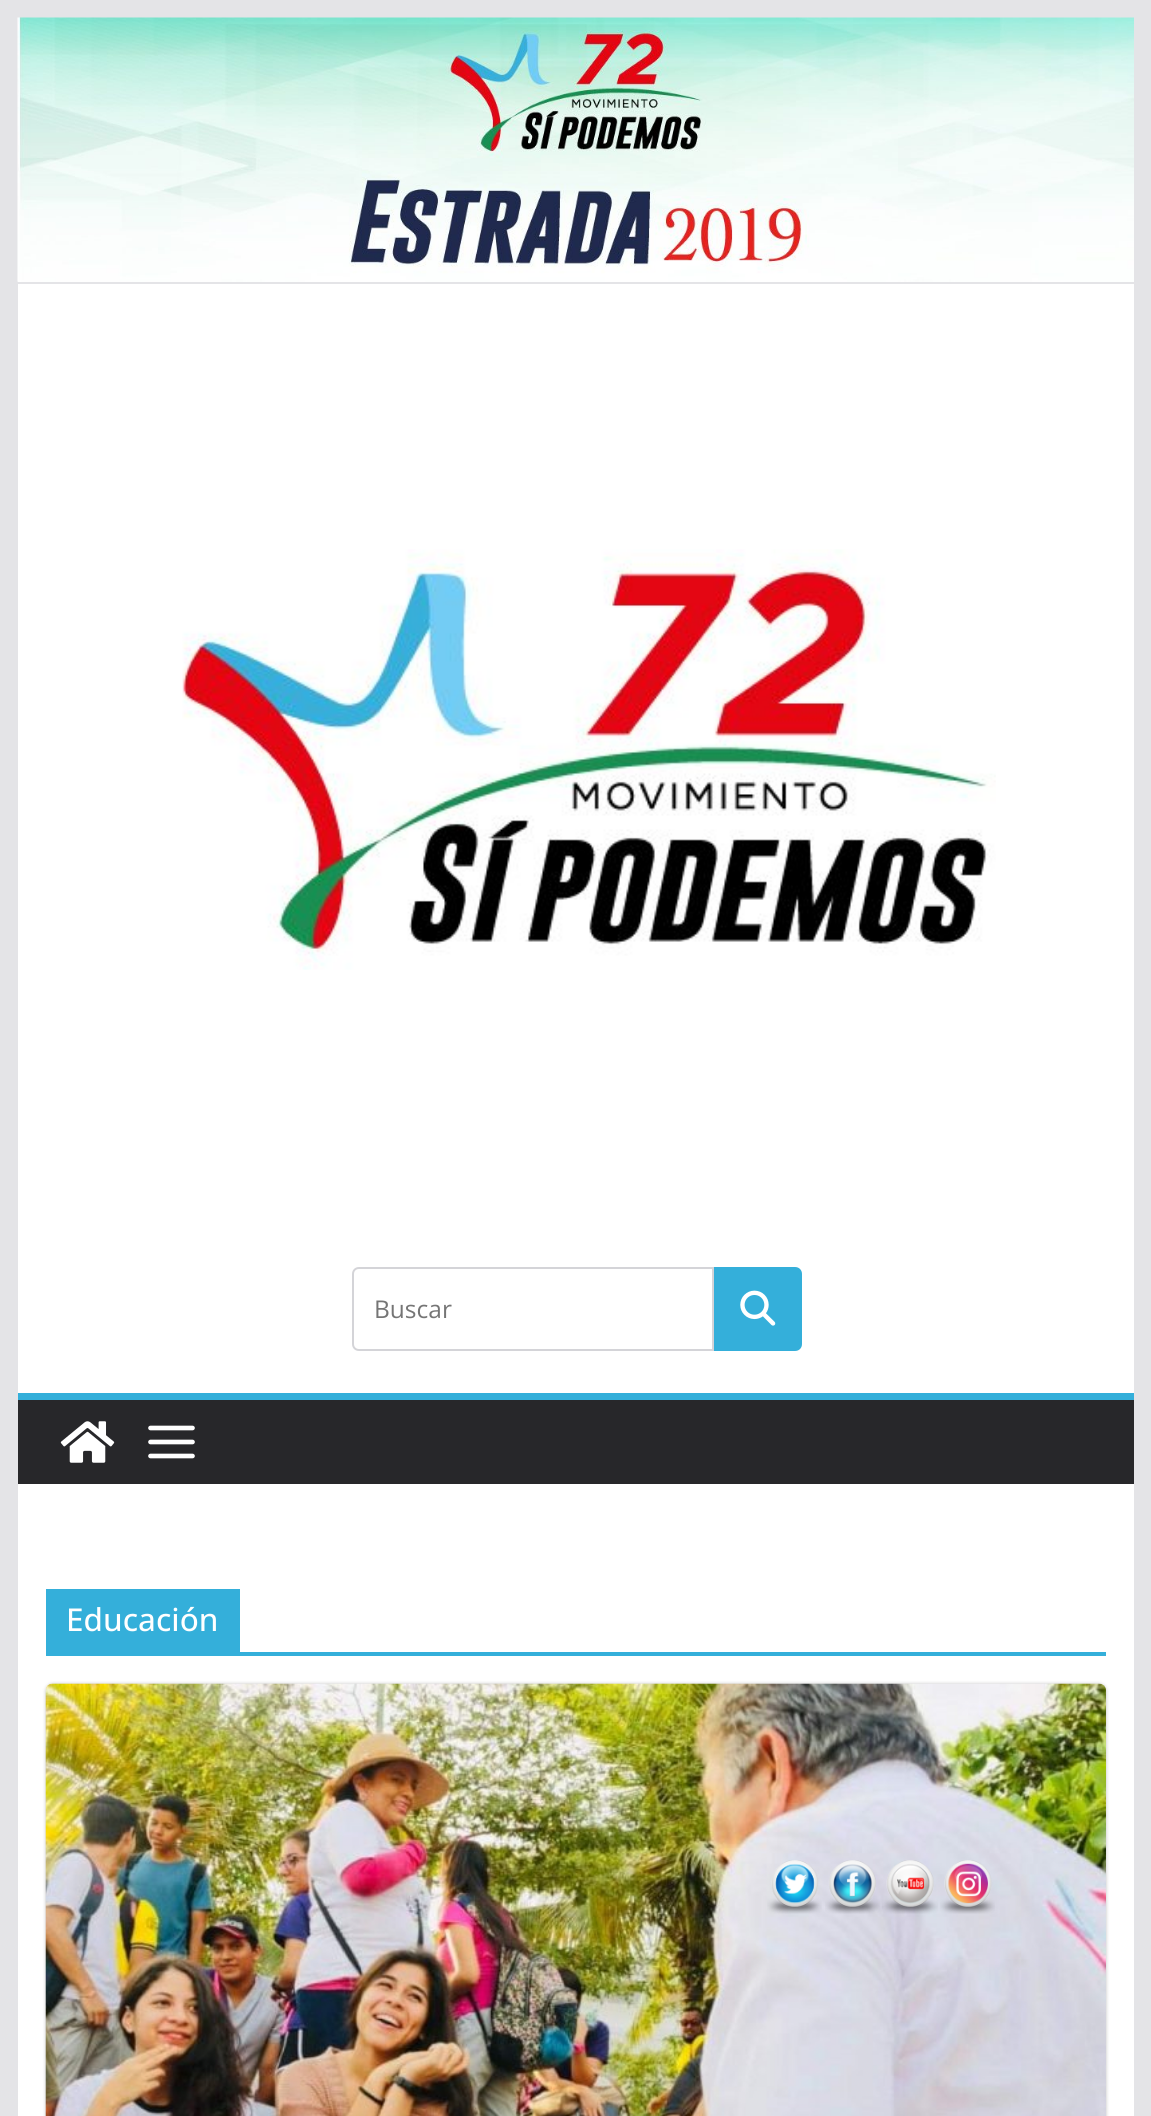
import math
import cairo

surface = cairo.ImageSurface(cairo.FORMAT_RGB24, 1151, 2116)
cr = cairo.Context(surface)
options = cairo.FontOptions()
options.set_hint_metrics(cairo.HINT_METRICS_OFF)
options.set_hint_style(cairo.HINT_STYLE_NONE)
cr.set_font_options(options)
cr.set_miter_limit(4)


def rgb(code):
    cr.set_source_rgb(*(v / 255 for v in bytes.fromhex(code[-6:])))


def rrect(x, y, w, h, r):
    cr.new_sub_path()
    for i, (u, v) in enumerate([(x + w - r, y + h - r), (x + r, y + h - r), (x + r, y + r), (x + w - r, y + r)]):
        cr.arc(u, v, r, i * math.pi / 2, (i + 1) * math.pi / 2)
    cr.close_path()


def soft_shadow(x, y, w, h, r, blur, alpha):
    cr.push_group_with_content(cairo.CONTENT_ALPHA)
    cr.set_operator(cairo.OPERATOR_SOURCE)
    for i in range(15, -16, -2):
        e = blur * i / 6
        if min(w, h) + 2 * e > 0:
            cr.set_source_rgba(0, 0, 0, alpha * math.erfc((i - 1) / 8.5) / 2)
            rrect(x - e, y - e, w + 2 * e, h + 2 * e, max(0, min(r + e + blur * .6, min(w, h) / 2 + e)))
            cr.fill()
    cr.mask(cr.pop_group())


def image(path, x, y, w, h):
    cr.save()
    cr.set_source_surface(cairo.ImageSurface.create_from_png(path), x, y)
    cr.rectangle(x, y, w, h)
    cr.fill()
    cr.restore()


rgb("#e4e4e7")
cr.paint()
rgb("#ffffff")
cr.rectangle(18, 281, 1116, 1112)
cr.fill()
image("img/1.png", 17, 17, 1117, 265)
rgb("#e4e4e7")
cr.rectangle(18, 282, 1116, 2)
cr.fill()
image("img/2.png", 182, 549, 814, 421)
cr.new_path()
cr.move_to(359, 1268)
cr.line_to(713, 1268)
cr.line_to(713, 1350)
cr.line_to(359, 1350)
cr.curve_to(355.5, 1350, 353, 1347.5, 353, 1344)
cr.line_to(353, 1274)
cr.curve_to(353, 1270.5, 355.5, 1268, 359, 1268)
cr.close_path()
rgb("#d4d4d8")
cr.stroke()
rgb("#34afda")
cr.new_path()
cr.move_to(715, 1268)
cr.line_to(795, 1268)
cr.curve_to(798.5, 1268, 801, 1270.5, 801, 1274)
cr.line_to(801, 1344)
cr.curve_to(801, 1347.5, 798.5, 1350, 795, 1350)
cr.line_to(715, 1350)
cr.close_path()
cr.fill_preserve()
cr.stroke()
image("img/3.png", 740, 1290, 36, 36)
rgb("#27272a")
cr.rectangle(18, 1400, 1116, 84)
cr.fill()
rgb("#34afda")
cr.rectangle(18, 1393, 1116, 7)
cr.fill()
image("img/4.png", 60, 1421, 55, 42)
image("img/5.png", 148, 1425, 47, 34)
for x, y, w, h, color in [
    (18, 1484, 1116, 632, "#ffffff"),
    (46, 1652, 1060, 4, "#34afda"),
    (46, 1589, 194, 63, "#34afda"),
]:
    rgb(color)
    cr.rectangle(x, y, w, h)
    cr.fill()
rgb("#000000")
soft_shadow(46, 1684, 1060, 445, 7, 2, 0.24)
image("img/6.png", 45, 1683, 1061, 433)
image("img/7.png", 767, 1860, 55, 54)
image("img/8.png", 825, 1860, 55, 54)
image("img/9.png", 882, 1860, 56, 54)
image("img/10.png", 940, 1860, 55, 54)
cr.select_font_face("Open Sans")
cr.set_font_size(24.5)
rgb("#757575")
cr.move_to(374, 1318)
cr.show_text("Buscar")
cr.select_font_face("Open Sans Medium")
cr.set_font_size(31.5)
rgb("#ffffff")
cr.move_to(66, 1631)
cr.show_text("Educación")
surface.write_to_png("page.png")
